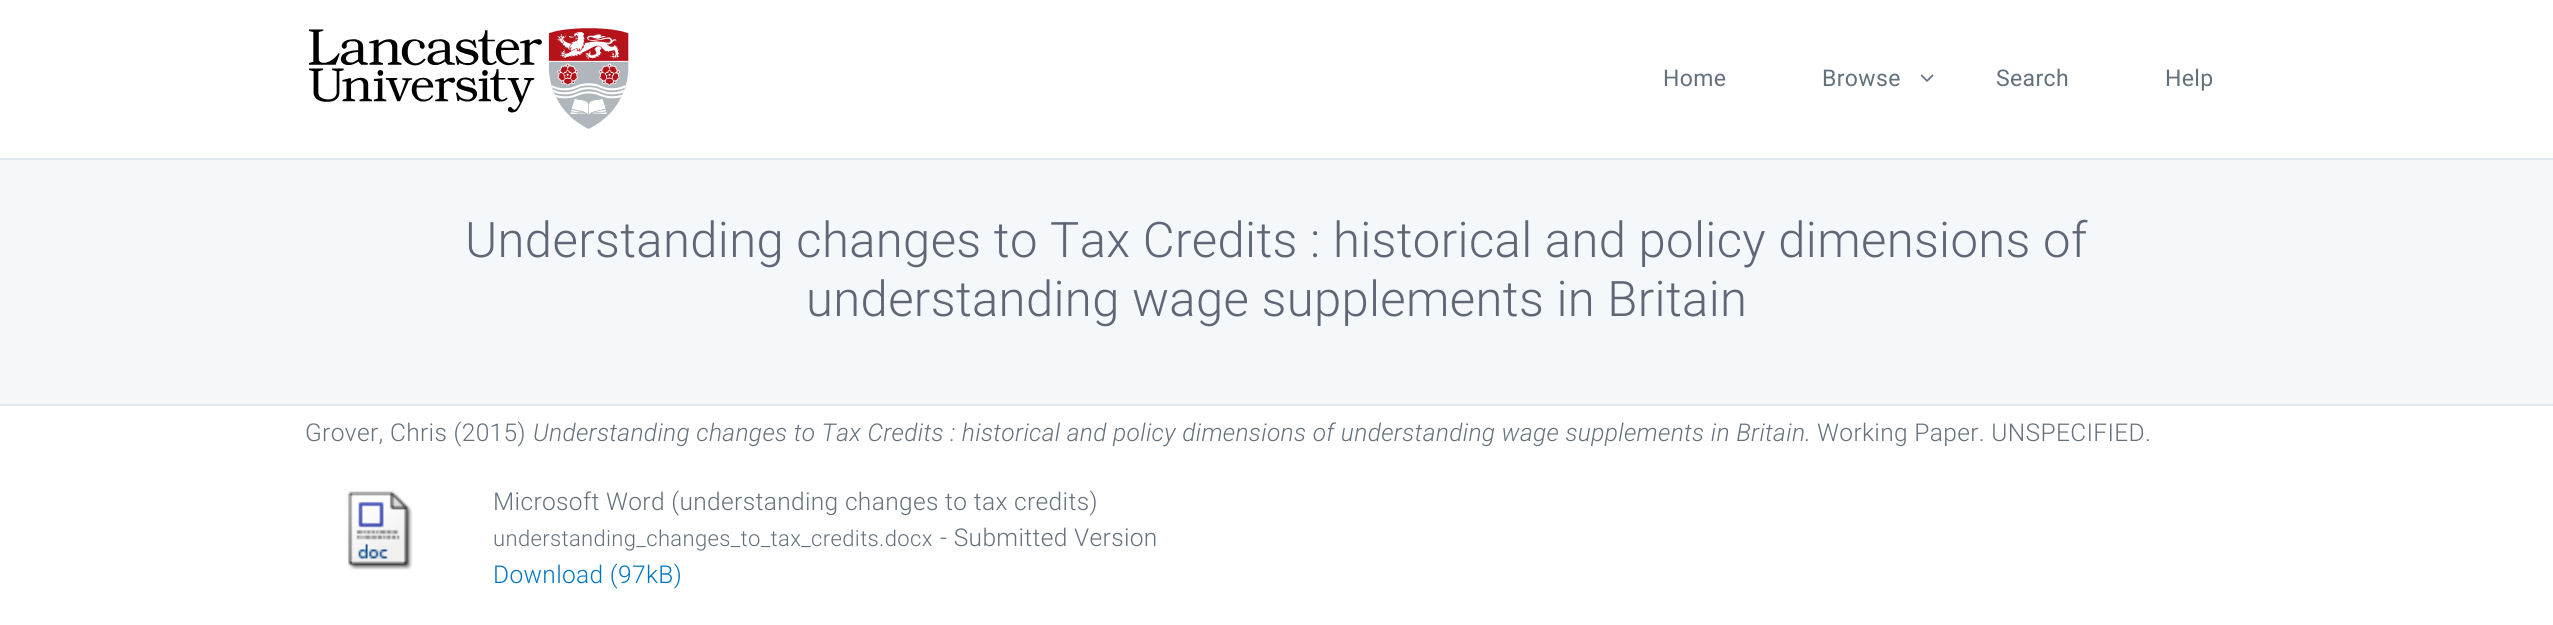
import math
import cairo

surface = cairo.ImageSurface(cairo.FORMAT_RGB24, 2553, 625)
cr = cairo.Context(surface)
options = cairo.FontOptions()
options.set_hint_metrics(cairo.HINT_METRICS_OFF)
options.set_hint_style(cairo.HINT_STYLE_NONE)
cr.set_font_options(options)
cr.set_miter_limit(4)


def rgb(code):
    cr.set_source_rgb(*(v / 255 for v in bytes.fromhex(code[-6:])))


def tracked(x, y, s, letter, word):
    cr.move_to(x, y)
    for ch in s:
        cr.show_text(ch)
        cr.rel_move_to(letter + word * (ch == ' '), 0)


def image(path, x, y, w, h):
    cr.save()
    cr.set_source_surface(cairo.ImageSurface.create_from_png(path), x, y)
    cr.rectangle(x, y, w, h)
    cr.fill()
    cr.restore()


rgb("#ffffff")
cr.paint()
image("img/1.png", 309, 28, 320, 101)
image("img/2.png", 1920, 74, 14, 8)
for x, y, w, h, color in [
    (0, 160, 2553, 244, "#f5f8fa"),
    (0, 158, 2553, 2, "#e1e8ee"),
    (0, 404, 2553, 2, "#e1e8ee"),
]:
    rgb(color)
    cr.rectangle(x, y, w, h)
    cr.fill()
image("img/3.png", 347, 491, 66, 79)
cr.select_font_face("Roboto")
cr.set_font_size(23)
rgb("#64717c")
for x, y, s in [
    (1663, 86, "Home"),
    (1822, 86, "Browse"),
    (1996, 86, "Search"),
    (2165, 86, "Help"),
]:
    tracked(x, y, s, 0.35, 0)
cr.select_font_face("Roboto Light")
cr.set_font_size(49)
rgb("#606676")
tracked(465, 257, "Understanding changes to Tax Credits : historical and policy dimensions of", 0.35, 0)
tracked(806, 316, "understanding wage supplements in Britain", 0.35, 0)
cr.set_font_size(24.5)
rgb("#64717c")
tracked(305, 441, "Grover, Chris (2015)", 0.35, 0)
cr.select_font_face("Roboto Light", cairo.FONT_SLANT_ITALIC)
tracked(533, 441, "Understanding changes to Tax Credits : historical and policy dimensions of understanding wage supplements in Britain.", 0.35, 0)
cr.select_font_face("Roboto Light")
tracked(1817, 441, "Working Paper. UNSPECIFIED.", 0.35, 0)
tracked(493, 510, "Microsoft Word (understanding changes to tax credits)", 0.35, 0)
cr.set_font_size(22)
tracked(493, 546, "understanding_changes_to_tax_credits.docx", 0.35, 0)
cr.set_font_size(24.5)
tracked(940, 546, "- Submitted Version", 0.35, 0)
rgb("#0076c1")
tracked(493, 583, "Download (97kB)", 0.35, 0)
surface.write_to_png("page.png")
